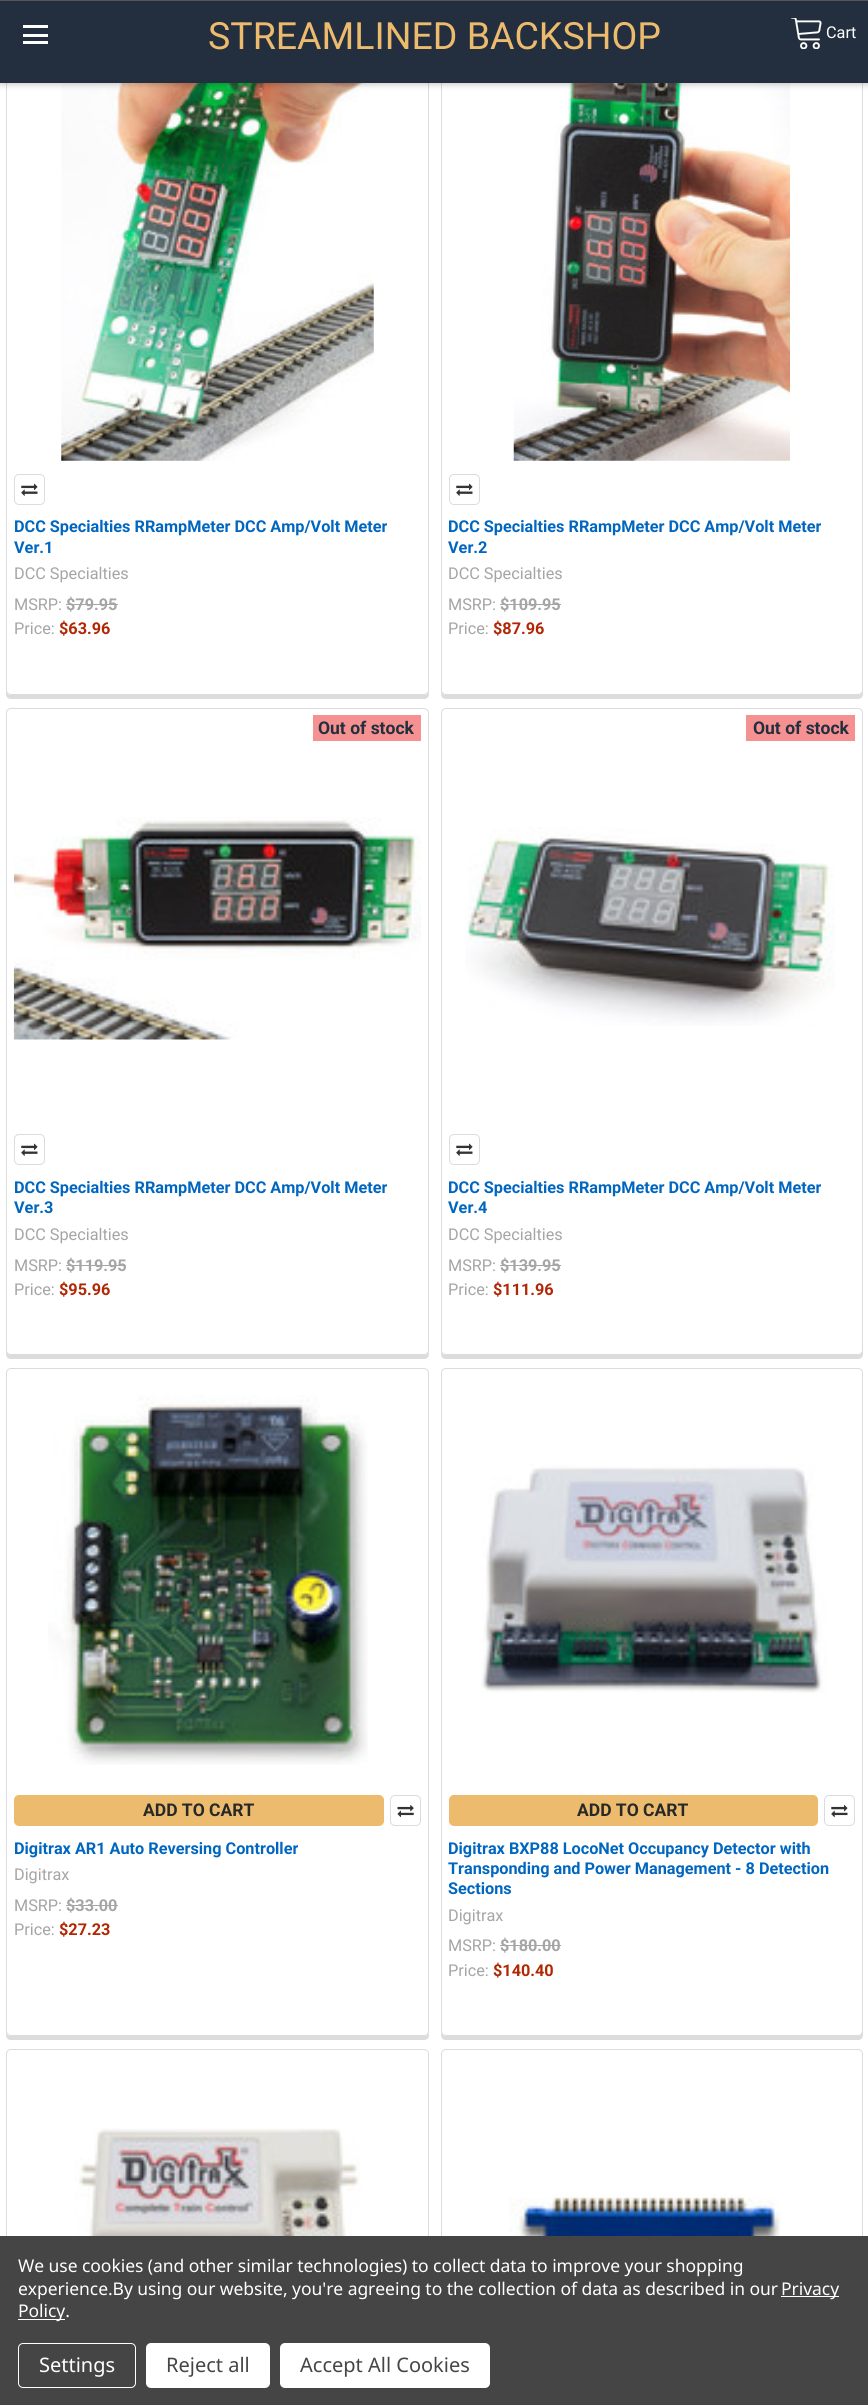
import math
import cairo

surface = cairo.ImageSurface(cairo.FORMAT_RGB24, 868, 2405)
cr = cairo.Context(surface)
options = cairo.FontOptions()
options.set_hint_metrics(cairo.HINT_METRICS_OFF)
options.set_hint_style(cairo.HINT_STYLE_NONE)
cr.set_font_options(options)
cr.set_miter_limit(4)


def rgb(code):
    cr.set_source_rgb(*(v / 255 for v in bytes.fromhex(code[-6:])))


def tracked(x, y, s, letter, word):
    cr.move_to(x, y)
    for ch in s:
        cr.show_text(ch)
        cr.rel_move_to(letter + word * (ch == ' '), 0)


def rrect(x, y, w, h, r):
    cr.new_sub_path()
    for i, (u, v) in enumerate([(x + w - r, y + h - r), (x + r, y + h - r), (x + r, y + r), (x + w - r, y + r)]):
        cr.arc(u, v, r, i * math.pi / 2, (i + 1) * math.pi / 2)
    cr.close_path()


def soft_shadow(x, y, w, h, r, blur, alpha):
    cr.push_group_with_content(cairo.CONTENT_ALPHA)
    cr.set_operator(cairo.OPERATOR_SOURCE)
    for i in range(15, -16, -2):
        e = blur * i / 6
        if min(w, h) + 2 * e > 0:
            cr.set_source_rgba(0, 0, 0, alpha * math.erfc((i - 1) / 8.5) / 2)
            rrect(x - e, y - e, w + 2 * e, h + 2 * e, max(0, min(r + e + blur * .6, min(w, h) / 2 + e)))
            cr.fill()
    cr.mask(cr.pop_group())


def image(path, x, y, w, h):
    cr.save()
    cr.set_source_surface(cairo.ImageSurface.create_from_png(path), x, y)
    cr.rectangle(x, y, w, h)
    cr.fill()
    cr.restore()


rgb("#ffffff")
cr.paint()
rgb("#dcdcdc")
cr.new_path()
cr.move_to(6, 54)
cr.line_to(6, 694)
cr.curve_to(6, 697, 8, 699, 11, 699)
cr.line_to(424, 699)
cr.curve_to(427, 699, 429, 697, 429, 694)
cr.line_to(429, 54)
cr.line_to(429, 690)
cr.curve_to(429, 693, 427, 695, 424, 695)
cr.line_to(11, 695)
cr.curve_to(8, 695, 6, 693, 6, 690)
cr.close_path()
cr.fill()
rgb("#ffffff")
rrect(6.5, 48.5, 422, 646, 4.5)
cr.fill_preserve()
rgb("#dcdcdc")
cr.set_line_width(1)
cr.stroke()
image("img/2.png", 61, 83, 313, 378)
cr.new_path()
cr.move_to(441, 54)
cr.line_to(441, 694)
cr.curve_to(441, 697, 443, 699, 446, 699)
cr.line_to(858, 699)
cr.curve_to(861, 699, 863, 697, 863, 694)
cr.line_to(863, 56)
cr.line_to(862, 54)
cr.line_to(862, 690)
cr.curve_to(862, 693, 860, 695, 858, 695)
cr.line_to(446, 695)
cr.curve_to(443, 695, 441, 693, 441, 690)
cr.close_path()
cr.fill()
rgb("#ffffff")
rrect(441.5, 48.5, 421, 646, 4.5)
cr.fill_preserve()
rgb("#dcdcdc")
cr.stroke()
image("img/4.png", 513, 83, 277, 378)
rgb("#000000")
soft_shadow(0, 3, 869, 82, 0, 3, 0.2)
for x, y, w, h, color in [
    (0, 1, 868, 82, "#232f3e"),
    (0, 0, 868, 1, "#565656"),
    (23, 34, 25, 3, "#ffffff"),
    (23, 25, 25, 3, "#ffffff"),
    (23, 41, 25, 3, "#ffffff"),
]:
    rgb(color)
    cr.rectangle(x, y, w, h)
    cr.fill()
image("img/1.png", 791, 18, 31, 31)
rrect(14.5, 474.5, 30, 30, 4.5)
rgb("#dcdcdc")
cr.stroke()
image("img/3.png", 21, 483, 17, 13)
rgb("#a5a5a5")
cr.rectangle(66, 604, 52, 1)
cr.fill()
rrect(449.5, 474.5, 30, 30, 4.5)
rgb("#dcdcdc")
cr.stroke()
image("img/3.png", 456, 483, 17, 13)
rgb("#a5a5a5")
cr.rectangle(500, 604, 61, 1)
cr.fill()
rgb("#dcdcdc")
cr.new_path()
cr.move_to(6, 714)
cr.line_to(6, 1354)
cr.curve_to(6, 1357, 8, 1359, 11, 1359)
cr.line_to(424, 1359)
cr.curve_to(427, 1359, 429, 1357, 429, 1354)
cr.line_to(429, 714)
cr.line_to(429, 1350)
cr.curve_to(429, 1353, 427, 1355, 424, 1355)
cr.line_to(11, 1355)
cr.curve_to(8, 1355, 6, 1353, 6, 1350)
cr.close_path()
cr.fill()
rgb("#ffffff")
rrect(6.5, 708.5, 422, 646, 4.5)
cr.fill_preserve()
rgb("#dcdcdc")
cr.stroke()
rgb("#f59191")
cr.rectangle(313, 715, 108, 26)
cr.fill()
image("img/5.png", 13, 817, 408, 223)
rrect(14.5, 1134.5, 30, 30, 4.5)
rgb("#dcdcdc")
cr.stroke()
image("img/3.png", 21, 1143, 17, 13)
rgb("#a5a5a5")
cr.rectangle(66, 1265, 60, 1)
cr.fill()
rgb("#dcdcdc")
cr.new_path()
cr.move_to(441, 714)
cr.line_to(441, 1354)
cr.curve_to(441, 1357, 443, 1359, 446, 1359)
cr.line_to(858, 1359)
cr.curve_to(861, 1359, 863, 1357, 863, 1354)
cr.line_to(863, 716)
cr.line_to(862, 714)
cr.line_to(862, 1350)
cr.curve_to(862, 1353, 860, 1355, 858, 1355)
cr.line_to(446, 1355)
cr.curve_to(443, 1355, 441, 1353, 441, 1350)
cr.close_path()
cr.fill()
rgb("#ffffff")
rrect(441.5, 708.5, 421, 646, 4.5)
cr.fill_preserve()
rgb("#dcdcdc")
cr.stroke()
rgb("#f59191")
cr.rectangle(746, 715, 109, 26)
cr.fill()
image("img/6.png", 465, 827, 370, 199)
rrect(449.5, 1134.5, 30, 30, 4.5)
rgb("#dcdcdc")
cr.stroke()
image("img/3.png", 456, 1143, 17, 13)
rgb("#a5a5a5")
cr.rectangle(500, 1265, 61, 1)
cr.fill()
rgb("#dcdcdc")
cr.new_path()
cr.move_to(6, 1374)
cr.line_to(6, 2035)
cr.curve_to(6, 2038, 8, 2040, 11, 2040)
cr.line_to(424, 2040)
cr.curve_to(427, 2040, 429, 2038, 429, 2035)
cr.line_to(429, 1374)
cr.line_to(429, 2031)
cr.curve_to(429, 2034, 427, 2036, 424, 2036)
cr.line_to(11, 2036)
cr.curve_to(8, 2036, 6, 2034, 6, 2031)
cr.close_path()
cr.fill()
rgb("#ffffff")
rrect(6.5, 1368.5, 422, 667, 4.5)
cr.fill_preserve()
rgb("#dcdcdc")
cr.stroke()
image("img/7.png", 48, 1395, 320, 370)
rgb("#edbb6e")
rrect(14.5, 1795.5, 369, 30, 4.5)
cr.fill_preserve()
cr.stroke()
rrect(390.5, 1795.5, 30, 30, 4.5)
rgb("#dcdcdc")
cr.stroke()
image("img/8.png", 397, 1805, 17, 13)
rgb("#a5a5a5")
cr.rectangle(66, 1905, 52, 1)
cr.fill()
rgb("#dcdcdc")
cr.new_path()
cr.move_to(441, 1374)
cr.line_to(441, 2035)
cr.curve_to(441, 2038, 443, 2040, 446, 2040)
cr.line_to(858, 2040)
cr.curve_to(861, 2040, 863, 2038, 863, 2035)
cr.line_to(863, 1376)
cr.line_to(862, 1374)
cr.line_to(862, 2031)
cr.curve_to(862, 2034, 860, 2036, 858, 2036)
cr.line_to(446, 2036)
cr.curve_to(443, 2036, 441, 2034, 441, 2031)
cr.close_path()
cr.fill()
rgb("#ffffff")
rrect(441.5, 1368.5, 421, 667, 4.5)
cr.fill_preserve()
rgb("#dcdcdc")
cr.stroke()
image("img/9.png", 481, 1464, 346, 229)
rgb("#edbb6e")
rrect(449.5, 1795.5, 368, 30, 4.5)
cr.fill_preserve()
cr.stroke()
rrect(824.5, 1795.5, 30, 30, 4.5)
rgb("#dcdcdc")
cr.stroke()
image("img/10.png", 831, 1805, 17, 13)
rgb("#a5a5a5")
cr.rectangle(500, 1945, 61, 1)
cr.fill()
rrect(6.5, 2049.5, 422, 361, 4.5)
rgb("#dcdcdc")
cr.stroke()
image("img/11.png", 74, 2128, 292, 108)
rrect(441.5, 2049.5, 421, 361, 4.5)
cr.stroke()
image("img/12.png", 509, 2194, 272, 42)
for x, y, w, h, color in [
    (0, 2236, 868, 169, "#454545"),
    (781, 2296, 58, 1, "#ffffff"),
    (18, 2319, 47, 1, "#ffffff"),
]:
    rgb(color)
    cr.rectangle(x, y, w, h)
    cr.fill()
rrect(18.5, 2343.5, 117, 44, 4.5)
cr.stroke()
rrect(146, 2343, 124, 45, 5)
cr.fill()
rrect(280, 2343, 210, 45, 5)
cr.fill()
cr.select_font_face("Roboto")
cr.set_font_size(37.5)
rgb("#edbb6e")
cr.move_to(208, 49)
cr.show_text("STREAMLINED BACKSHOP")
cr.set_font_size(16.25)
rgb("#ffffff")
cr.move_to(826, 38)
cr.show_text("Cart")
cr.select_font_face("Roboto", cairo.FONT_SLANT_NORMAL, cairo.FONT_WEIGHT_BOLD)
rgb("#0066c0")
cr.move_to(14, 532)
cr.show_text("DCC Specialties RRampMeter DCC Amp/Volt Meter")
cr.move_to(14, 553)
cr.show_text("Ver.1")
cr.select_font_face("Roboto")
rgb("#a5a5a5")
cr.move_to(14, 579)
cr.show_text("DCC Specialties")
cr.move_to(14, 610)
cr.show_text("MSRP:")
cr.select_font_face("Roboto", cairo.FONT_SLANT_NORMAL, cairo.FONT_WEIGHT_BOLD)
cr.move_to(66, 610)
cr.show_text("$79.95")
cr.select_font_face("Roboto")
cr.move_to(14, 634)
cr.show_text("Price:")
cr.select_font_face("Roboto", cairo.FONT_SLANT_NORMAL, cairo.FONT_WEIGHT_BOLD)
rgb("#b12704")
cr.move_to(59, 634)
cr.show_text("$63.96")
rgb("#0066c0")
cr.move_to(448, 532)
cr.show_text("DCC Specialties RRampMeter DCC Amp/Volt Meter")
cr.move_to(448, 553)
cr.show_text("Ver.2")
cr.select_font_face("Roboto")
rgb("#a5a5a5")
cr.move_to(448, 579)
cr.show_text("DCC Specialties")
cr.move_to(448, 610)
cr.show_text("MSRP:")
cr.select_font_face("Roboto", cairo.FONT_SLANT_NORMAL, cairo.FONT_WEIGHT_BOLD)
cr.move_to(500, 610)
cr.show_text("$109.95")
cr.select_font_face("Roboto")
cr.move_to(448, 634)
cr.show_text("Price:")
cr.select_font_face("Roboto", cairo.FONT_SLANT_NORMAL, cairo.FONT_WEIGHT_BOLD)
rgb("#b12704")
cr.move_to(493, 634)
cr.show_text("$87.96")
cr.set_font_size(17.5)
rgb("#232f3e")
cr.move_to(318, 734)
cr.show_text("Out of stock")
cr.set_font_size(16.25)
rgb("#0066c0")
cr.move_to(14, 1193)
cr.show_text("DCC Specialties RRampMeter DCC Amp/Volt Meter")
cr.move_to(14, 1213)
cr.show_text("Ver.3")
cr.select_font_face("Roboto")
rgb("#a5a5a5")
cr.move_to(14, 1240)
cr.show_text("DCC Specialties")
cr.move_to(14, 1271)
cr.show_text("MSRP:")
cr.select_font_face("Roboto", cairo.FONT_SLANT_NORMAL, cairo.FONT_WEIGHT_BOLD)
cr.move_to(66, 1271)
cr.show_text("$119.95")
cr.select_font_face("Roboto")
cr.move_to(14, 1295)
cr.show_text("Price:")
cr.select_font_face("Roboto", cairo.FONT_SLANT_NORMAL, cairo.FONT_WEIGHT_BOLD)
rgb("#b12704")
cr.move_to(59, 1295)
cr.show_text("$95.96")
cr.set_font_size(17.5)
rgb("#232f3e")
cr.move_to(753, 734)
cr.show_text("Out of stock")
cr.set_font_size(16.25)
rgb("#0066c0")
cr.move_to(448, 1193)
cr.show_text("DCC Specialties RRampMeter DCC Amp/Volt Meter")
cr.move_to(448, 1213)
cr.show_text("Ver.4")
cr.select_font_face("Roboto")
rgb("#a5a5a5")
cr.move_to(448, 1240)
cr.show_text("DCC Specialties")
cr.move_to(448, 1271)
cr.show_text("MSRP:")
cr.select_font_face("Roboto", cairo.FONT_SLANT_NORMAL, cairo.FONT_WEIGHT_BOLD)
cr.move_to(500, 1271)
cr.show_text("$139.95")
cr.select_font_face("Roboto")
cr.move_to(448, 1295)
cr.show_text("Price:")
cr.select_font_face("Roboto", cairo.FONT_SLANT_NORMAL, cairo.FONT_WEIGHT_BOLD)
rgb("#b12704")
cr.move_to(493, 1295)
cr.show_text("$111.96")
cr.set_font_size(17.5)
rgb("#282828")
cr.move_to(143, 1816)
cr.show_text("ADD TO CART")
cr.set_font_size(16.25)
rgb("#0066c0")
cr.move_to(14, 1854)
cr.show_text("Digitrax AR1 Auto Reversing Controller")
cr.select_font_face("Roboto")
rgb("#a5a5a5")
cr.move_to(14, 1880)
cr.show_text("Digitrax")
cr.move_to(14, 1911)
cr.show_text("MSRP:")
cr.select_font_face("Roboto", cairo.FONT_SLANT_NORMAL, cairo.FONT_WEIGHT_BOLD)
cr.move_to(66, 1911)
cr.show_text("$33.00")
cr.select_font_face("Roboto")
cr.move_to(14, 1935)
cr.show_text("Price:")
cr.select_font_face("Roboto", cairo.FONT_SLANT_NORMAL, cairo.FONT_WEIGHT_BOLD)
rgb("#b12704")
cr.move_to(59, 1935)
cr.show_text("$27.23")
cr.set_font_size(17.5)
rgb("#282828")
cr.move_to(577, 1816)
cr.show_text("ADD TO CART")
cr.set_font_size(16.25)
rgb("#0066c0")
for x, y, s in [
    (448, 1854, "Digitrax BXP88 LocoNet Occupancy Detector with"),
    (448, 1874, "Transponding and Power Management - 8 Detection"),
    (448, 1894, "Sections"),
]:
    cr.move_to(x, y)
    cr.show_text(s)
cr.select_font_face("Roboto")
rgb("#a5a5a5")
cr.move_to(448, 1921)
cr.show_text("Digitrax")
cr.move_to(448, 1951)
cr.show_text("MSRP:")
cr.select_font_face("Roboto", cairo.FONT_SLANT_NORMAL, cairo.FONT_WEIGHT_BOLD)
cr.move_to(500, 1951)
cr.show_text("$180.00")
cr.select_font_face("Roboto")
cr.move_to(448, 1976)
cr.show_text("Price:")
cr.select_font_face("Roboto", cairo.FONT_SLANT_NORMAL, cairo.FONT_WEIGHT_BOLD)
rgb("#b12704")
cr.move_to(493, 1976)
cr.show_text("$140.40")
cr.select_font_face("Noto Sans")
cr.set_font_size(17.5)
rgb("#ffffff")
for x, y, s in [
    (18, 2272, "We use cookies (and other similar technologies) to collect data to improve your shopping"),
    (18, 2295, "experience.By using our website, you're agreeing to the collection of data as described in our"),
    (781, 2295, "Privacy"),
    (18, 2317, "Policy."),
]:
    tracked(x, y, s, -0.05, 0)
cr.set_font_size(20)
cr.move_to(39, 2372)
cr.show_text("Settings")
rgb("#454545")
cr.move_to(166, 2372)
cr.show_text("Reject all")
cr.move_to(300, 2372)
cr.show_text("Accept All Cookies")
surface.write_to_png("page.png")
